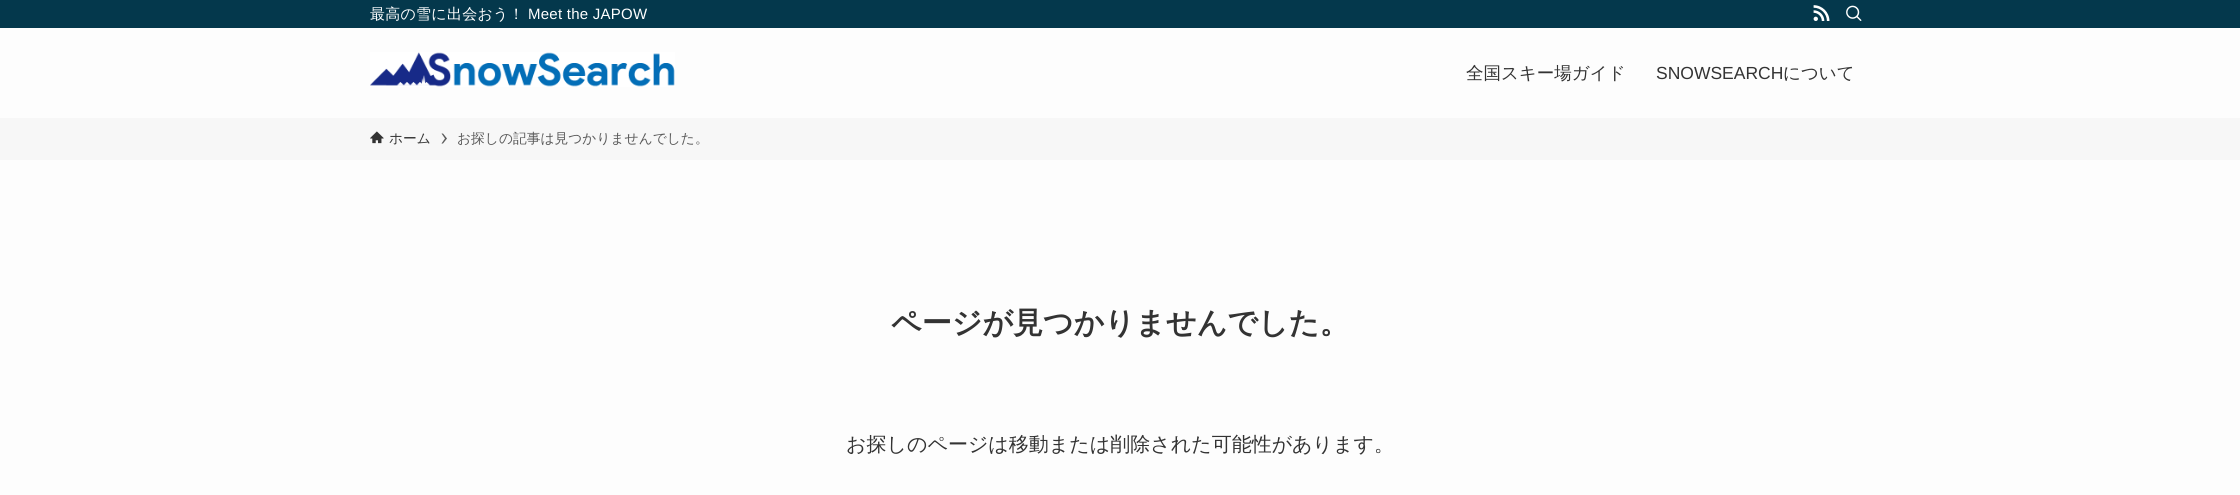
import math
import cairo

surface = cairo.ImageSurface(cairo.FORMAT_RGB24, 2240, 495)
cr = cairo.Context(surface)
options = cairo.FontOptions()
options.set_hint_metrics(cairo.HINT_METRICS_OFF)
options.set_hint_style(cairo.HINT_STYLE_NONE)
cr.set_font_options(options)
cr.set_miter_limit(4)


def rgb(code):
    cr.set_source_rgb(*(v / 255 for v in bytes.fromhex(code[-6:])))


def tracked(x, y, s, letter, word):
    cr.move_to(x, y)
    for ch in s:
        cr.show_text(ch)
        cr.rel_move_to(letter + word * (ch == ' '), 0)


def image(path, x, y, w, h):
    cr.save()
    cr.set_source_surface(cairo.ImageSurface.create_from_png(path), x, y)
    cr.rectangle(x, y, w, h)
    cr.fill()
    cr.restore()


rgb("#fdfdfd")
cr.paint()
rgb("#04384c")
cr.rectangle(0, 0, 2240, 28)
cr.fill()
image("img/1.png", 1813, 5, 17, 16)
image("img/2.png", 1846, 5, 16, 16)
image("img/3.png", 370, 52, 305, 35)
rgb("#f7f7f7")
cr.rectangle(0, 118, 2240, 42)
cr.fill()
image("img/4.png", 370, 131, 14, 13)
rgb("#5a5a5a")
cr.new_path()
cr.move_to(443, 133.5)
cr.line_to(441.5, 133.5)
cr.line_to(445, 138.5)
cr.line_to(441.5, 143.5)
cr.line_to(443, 143.5)
cr.line_to(447, 138.5)
cr.close_path()
cr.fill()
cr.select_font_face("WenQuanYi Zen Hei Medium")
cr.set_font_size(15)
rgb("#ffffff")
tracked(370, 19, "最高の雪に出会おう！", 0.25, 0)
cr.select_font_face("Liberation Sans")
tracked(528, 19, "Meet the JAPOW", 0.25, 0)
cr.select_font_face("WenQuanYi Zen Hei Medium")
cr.set_font_size(17.5)
rgb("#333333")
cr.move_to(1466, 79)
cr.show_text("全国スキー場ガイド")
cr.select_font_face("Liberation Sans")
cr.move_to(1656, 79)
cr.show_text("SNOWSEARCH")
cr.select_font_face("WenQuanYi Zen Hei Medium")
cr.move_to(1783, 79)
cr.show_text("について")
cr.set_font_size(13.75)
cr.move_to(389, 143)
cr.show_text("ホーム")
rgb("#5a5a5a")
cr.move_to(457, 143)
cr.show_text("お探しの記事は見つかりませんでした。")
cr.select_font_face("WenQuanYi Zen Hei", cairo.FONT_SLANT_NORMAL, cairo.FONT_WEIGHT_BOLD)
cr.set_font_size(30)
rgb("#333333")
cr.move_to(891, 333)
cr.show_text("ページが見つかりませんでした。")
cr.select_font_face("WenQuanYi Zen Hei Medium")
cr.set_font_size(20)
cr.move_to(846, 451)
cr.show_text("お探しのページは移動または削除された可能性があります。")
surface.write_to_png("page.png")
